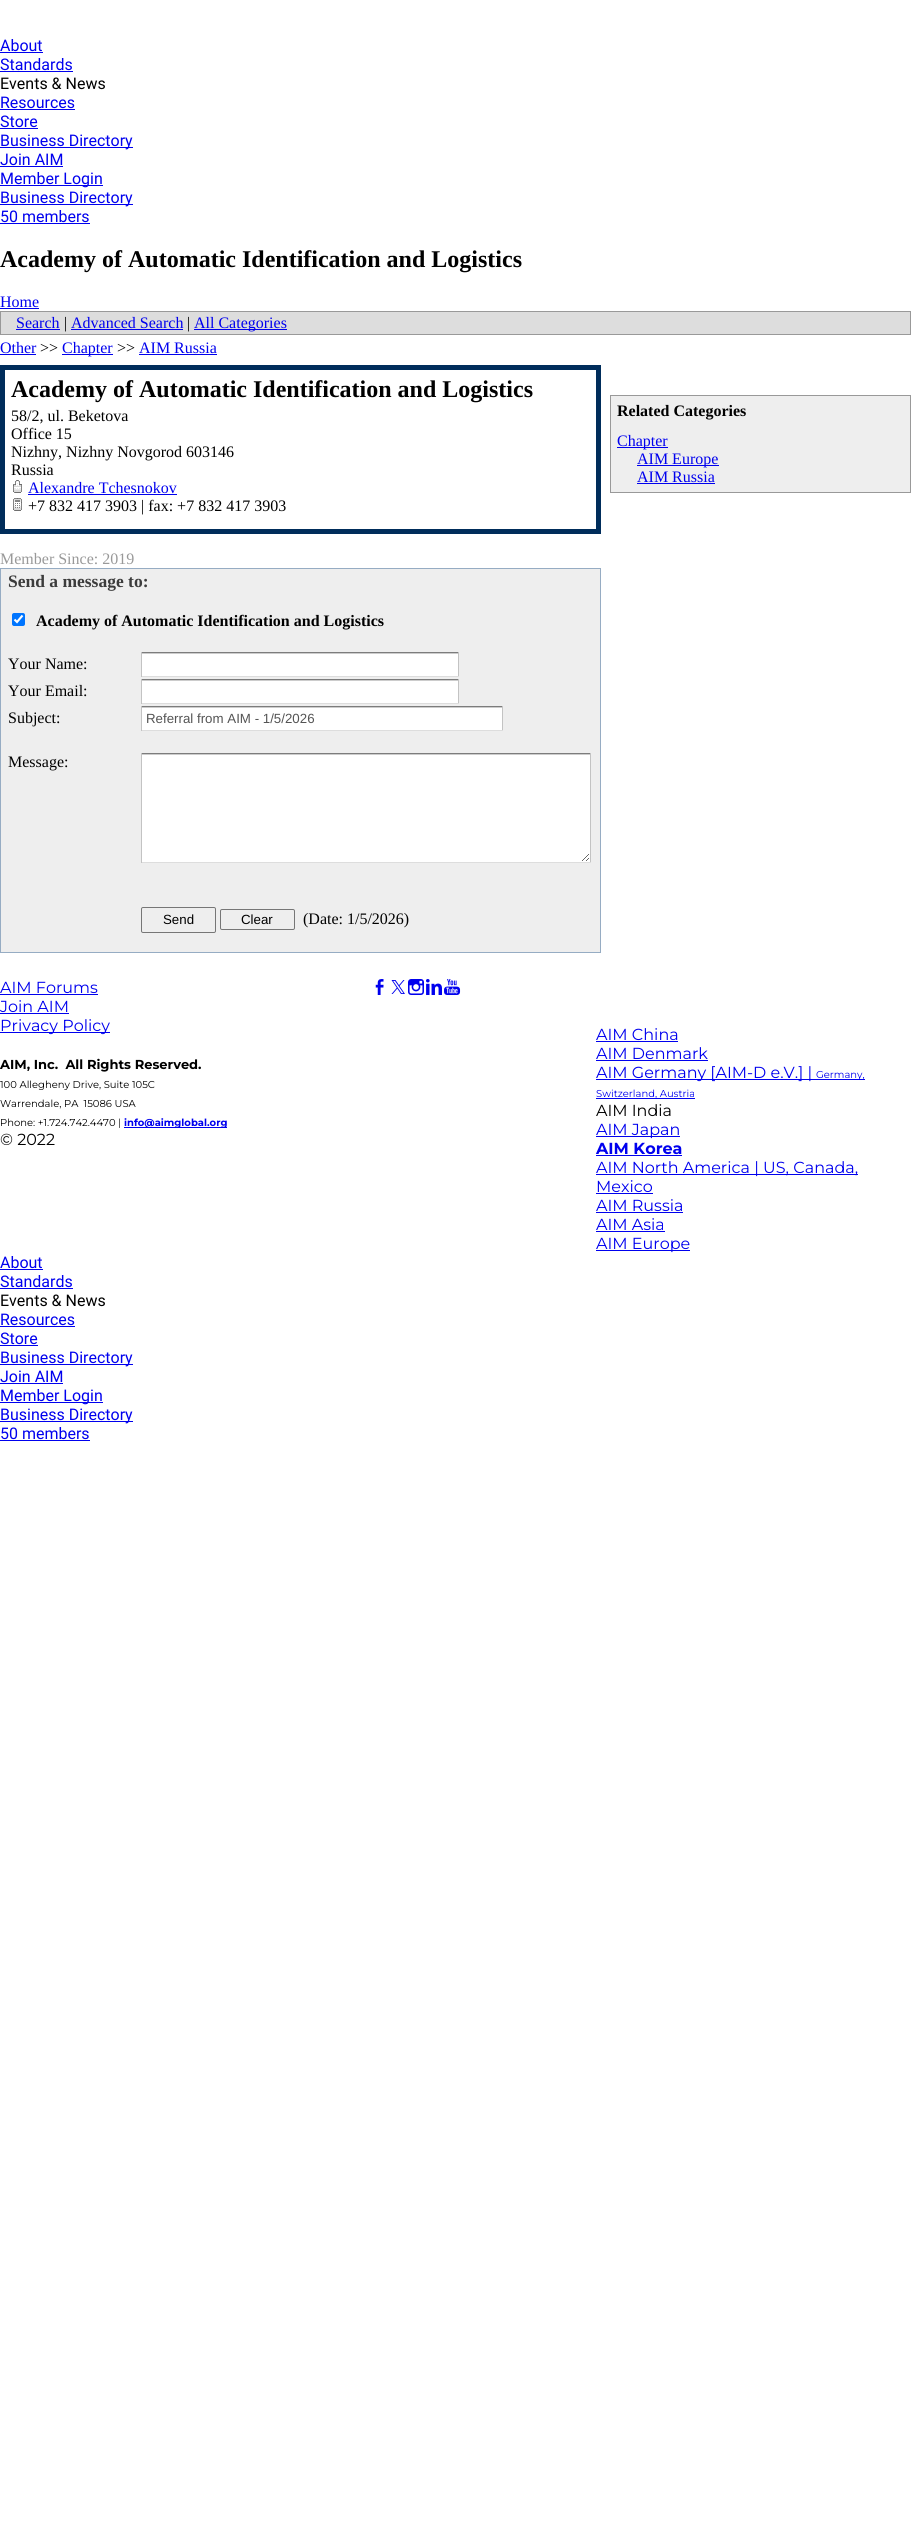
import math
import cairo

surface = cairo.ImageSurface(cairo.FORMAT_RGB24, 911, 2538)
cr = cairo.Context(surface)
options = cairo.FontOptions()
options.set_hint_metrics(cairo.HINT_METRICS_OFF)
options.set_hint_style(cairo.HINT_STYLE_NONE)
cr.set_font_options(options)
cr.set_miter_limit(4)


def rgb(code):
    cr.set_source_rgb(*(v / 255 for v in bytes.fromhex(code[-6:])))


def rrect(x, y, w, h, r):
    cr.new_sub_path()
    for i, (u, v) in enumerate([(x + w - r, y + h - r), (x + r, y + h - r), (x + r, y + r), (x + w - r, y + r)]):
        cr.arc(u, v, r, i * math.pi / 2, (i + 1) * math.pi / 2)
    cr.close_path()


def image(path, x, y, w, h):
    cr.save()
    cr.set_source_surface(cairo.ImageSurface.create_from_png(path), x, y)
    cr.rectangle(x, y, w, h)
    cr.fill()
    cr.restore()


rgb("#ffffff")
cr.paint()
for x, y, w, h, color in [
    (0, 52, 43, 1, "#0000ee"),
    (0, 71, 73, 1, "#0000ee"),
    (0, 109, 75, 1, "#0000ee"),
    (0, 128, 38, 1, "#0000ee"),
    (0, 147, 133, 1, "#0000ee"),
    (0, 166, 63, 1, "#0000ee"),
    (0, 185, 103, 1, "#0000ee"),
    (0, 204, 133, 1, "#0000ee"),
    (0, 223, 90, 1, "#0000ee"),
    (0, 308, 39, 1, "#0000ee"),
]:
    rgb(color)
    cr.rectangle(x, y, w, h)
    cr.fill()
rgb("#dddddd")
cr.rectangle(0.5, 311.5, 910, 23)
cr.fill_preserve()
rgb("#999999")
cr.set_line_width(1)
cr.stroke()
for x, y, w, h, color in [
    (16, 329, 44, 1, "#0000ee"),
    (71, 329, 112, 1, "#0000ee"),
    (194, 329, 93, 1, "#0000ee"),
    (0, 354, 36, 1, "#0000ee"),
    (62, 354, 51, 1, "#0000ee"),
    (139, 354, 78, 1, "#0000ee"),
    (0, 365, 601, 169, "#002d5b"),
    (5, 370, 591, 159, "#ffffff"),
]:
    rgb(color)
    cr.rectangle(x, y, w, h)
    cr.fill()
image("img/1.png", 13, 480, 9, 13)
rgb("#0000ee")
cr.rectangle(28, 494, 149, 1)
cr.fill()
image("img/2.png", 13, 498, 9, 13)
rgb("#eeeeee")
cr.rectangle(0.5, 568.5, 600, 384)
cr.fill_preserve()
rgb("#96acc3")
cr.stroke()
rgb("#0075ff")
rrect(12, 613, 13, 13, 2)
cr.fill()
cr.new_path()
cr.move_to(14.5, 619.5)
cr.line_to(17, 622)
cr.line_to(22.5, 615.5)
rgb("#ffffff")
cr.set_line_width(2.1)
cr.stroke()
for x, y, w, h, color in [
    (142, 654, 316, 22, "#ffffff"),
    (141, 653, 318, 1, "#cccccc"),
    (141, 652, 318, 1, "#7c7c7c"),
    (458, 652, 1, 25, "#c3c3c3"),
    (141, 676, 318, 1, "#dddddd"),
    (141, 652, 1, 25, "#c3c3c3"),
    (142, 681, 316, 22, "#ffffff"),
    (141, 680, 318, 1, "#cccccc"),
    (141, 679, 318, 1, "#7c7c7c"),
    (458, 679, 1, 25, "#c3c3c3"),
    (141, 703, 318, 1, "#dddddd"),
    (141, 679, 1, 25, "#c3c3c3"),
    (142, 708, 360, 22, "#ffffff"),
    (141, 707, 362, 1, "#cccccc"),
    (141, 706, 362, 1, "#7c7c7c"),
    (502, 706, 1, 25, "#c3c3c3"),
    (141, 730, 362, 1, "#dddddd"),
    (141, 706, 1, 25, "#c3c3c3"),
    (142, 755, 448, 107, "#ffffff"),
]:
    rgb(color)
    cr.rectangle(x, y, w, h)
    cr.fill()
image("img/3.png", 142, 754, 448, 107)
for x, y, w, h, color in [
    (141, 753, 450, 1, "#7c7c7c"),
    (590, 753, 1, 110, "#c3c3c3"),
    (141, 862, 450, 1, "#dddddd"),
    (141, 753, 1, 110, "#c3c3c3"),
]:
    rgb(color)
    cr.rectangle(x, y, w, h)
    cr.fill()
rrect(141.5, 907.5, 74, 25, 1.5)
rgb("#767676")
cr.set_line_width(1)
cr.stroke()
rrect(220.5, 909.5, 74, 20, 1.5)
cr.stroke()
rgb("#eeeeee")
cr.rectangle(610.5, 395.5, 300, 97)
cr.fill_preserve()
rgb("#999999")
cr.stroke()
for x, y, w, h, color in [
    (617, 447, 51, 1, "#0000ee"),
    (637, 465, 82, 1, "#0000ee"),
    (637, 483, 78, 1, "#0000ee"),
    (0, 994, 98, 1, "#0000ee"),
    (0, 1013, 69, 1, "#0000ee"),
    (0, 1032, 110, 1, "#0000ee"),
    (124, 1127, 103, 1, "#0000ee"),
]:
    rgb(color)
    cr.rectangle(x, y, w, h)
    cr.fill()
image("img/4.png", 375, 979, 9, 16)
image("img/5.png", 391, 980, 14, 14)
image("img/6.png", 408, 979, 16, 16)
image("img/7.png", 426, 979, 16, 16)
image("img/8.png", 444, 979, 17, 16)
for x, y, w, h, color in [
    (596, 1041, 82, 1, "#0000ee"),
    (596, 1060, 112, 1, "#0000ee"),
    (596, 1079, 269, 1, "#0000ee"),
    (596, 1098, 99, 1, "#0000ee"),
    (596, 1136, 84, 1, "#0000ee"),
    (596, 1155, 86, 1, "#0000ee"),
    (596, 1174, 262, 1, "#0000ee"),
    (596, 1193, 57, 1, "#0000ee"),
    (596, 1212, 87, 1, "#0000ee"),
    (596, 1231, 69, 1, "#0000ee"),
    (596, 1250, 94, 1, "#0000ee"),
    (0, 1269, 43, 1, "#0000ee"),
    (0, 1288, 73, 1, "#0000ee"),
    (0, 1326, 75, 1, "#0000ee"),
    (0, 1345, 38, 1, "#0000ee"),
    (0, 1364, 133, 1, "#0000ee"),
    (0, 1383, 63, 1, "#0000ee"),
    (0, 1402, 103, 1, "#0000ee"),
    (0, 1421, 133, 1, "#0000ee"),
    (0, 1440, 90, 1, "#0000ee"),
]:
    rgb(color)
    cr.rectangle(x, y, w, h)
    cr.fill()
cr.select_font_face("Roboto")
cr.set_font_size(16)
cr.move_to(0, 51)
cr.show_text("About")
cr.move_to(0, 70)
cr.show_text("Standards")
rgb("#000000")
cr.move_to(0, 89)
cr.show_text("Events & News")
rgb("#0000ee")
for x, y, s in [
    (0, 108, "Resources"),
    (0, 127, "Store"),
    (0, 146, "Business Directory"),
    (0, 165, "Join AIM"),
    (0, 184, "Member Login"),
    (0, 203, "Business Directory"),
    (0, 222, "50 members"),
]:
    cr.move_to(x, y)
    cr.show_text(s)
cr.select_font_face("Liberation Serif", cairo.FONT_SLANT_NORMAL, cairo.FONT_WEIGHT_BOLD)
cr.set_font_size(24)
rgb("#000000")
cr.move_to(0, 267)
cr.show_text("Academy of Automatic Identification and Logistics")
cr.select_font_face("Liberation Serif")
cr.set_font_size(16)
rgb("#0000ee")
cr.move_to(0, 307)
cr.show_text("Home")
cr.move_to(16, 328)
cr.show_text("Search")
rgb("#000000")
cr.move_to(64, 328)
cr.show_text("|")
rgb("#0000ee")
cr.move_to(71, 328)
cr.show_text("Advanced Search")
rgb("#000000")
cr.move_to(187, 328)
cr.show_text("|")
rgb("#0000ee")
cr.move_to(194, 328)
cr.show_text("All Categories")
cr.move_to(0, 353)
cr.show_text("Other")
rgb("#000000")
cr.move_to(40, 353)
cr.show_text(">>")
rgb("#0000ee")
cr.move_to(62, 353)
cr.show_text("Chapter")
rgb("#000000")
cr.move_to(117, 353)
cr.show_text(">>")
rgb("#0000ee")
cr.move_to(139, 353)
cr.show_text("AIM Russia")
cr.select_font_face("Liberation Serif", cairo.FONT_SLANT_NORMAL, cairo.FONT_WEIGHT_BOLD)
cr.set_font_size(24)
rgb("#000000")
cr.move_to(11, 397)
cr.show_text("Academy of Automatic Identification and Logistics")
cr.select_font_face("Liberation Serif")
cr.set_font_size(16)
for x, y, s in [
    (11, 421, "58/2, ul. Beketova"),
    (11, 439, "Office 15"),
    (11, 457, "Nizhny, Nizhny Novgorod 603146"),
    (11, 475, "Russia"),
]:
    cr.move_to(x, y)
    cr.show_text(s)
rgb("#0000ee")
cr.move_to(28, 493)
cr.show_text("Alexandre Tchesnokov")
rgb("#000000")
cr.move_to(28, 511)
cr.show_text("+7 832 417 3903 | fax: +7 832 417 3903")
rgb("#999999")
cr.move_to(0, 564)
cr.show_text("Member Since: 2019")
cr.select_font_face("Liberation Serif", cairo.FONT_SLANT_NORMAL, cairo.FONT_WEIGHT_BOLD)
cr.set_font_size(17.5)
rgb("#3c3c3c")
cr.move_to(8, 587)
cr.show_text("Send a message to:")
cr.set_font_size(16)
rgb("#000000")
cr.move_to(36, 626)
cr.show_text("Academy of Automatic Identification and Logistics")
cr.select_font_face("Liberation Serif")
for x, y, s in [
    (8, 669, "Your Name:"),
    (8, 696, "Your Email:"),
    (8, 723, "Subject:"),
]:
    cr.move_to(x, y)
    cr.show_text(s)
cr.select_font_face("Liberation Sans")
cr.set_font_size(13.3)
rgb("#545454")
cr.move_to(146, 723)
cr.show_text("Referral from AIM - 1/5/2026")
cr.select_font_face("Liberation Serif")
cr.set_font_size(16)
rgb("#000000")
cr.move_to(8, 767)
cr.show_text("Message:")
cr.select_font_face("Liberation Sans")
cr.set_font_size(13.3)
cr.move_to(163, 924)
cr.show_text("Send")
cr.move_to(241, 924)
cr.show_text("Clear")
cr.select_font_face("Liberation Serif")
cr.set_font_size(16)
cr.move_to(303, 924)
cr.show_text("(Date: 1/5/2026)")
cr.select_font_face("Liberation Serif", cairo.FONT_SLANT_NORMAL, cairo.FONT_WEIGHT_BOLD)
cr.move_to(617, 416)
cr.show_text("Related Categories")
cr.select_font_face("Liberation Serif")
rgb("#0000ee")
for x, y, s in [
    (617, 446, "Chapter"),
    (637, 464, "AIM Europe"),
    (637, 482, "AIM Russia"),
]:
    cr.move_to(x, y)
    cr.show_text(s)
cr.select_font_face("Montserrat Thin")
for x, y, s in [
    (0, 993, "AIM Forums"),
    (0, 1012, "Join AIM"),
    (0, 1031, "Privacy Policy"),
]:
    cr.move_to(x, y)
    cr.show_text(s)
cr.select_font_face("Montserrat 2 Thin")
cr.set_font_size(13)
rgb("#000000")
cr.move_to(0, 1069)
cr.show_text("AIM, Inc.  All Rights Reserved.")
cr.select_font_face("Montserrat Thin")
cr.set_font_size(10)
for x, y, s in [
    (0, 1088, "100 Allegheny Drive, Suite 105C"),
    (0, 1107, "Warrendale, PA  15086 USA"),
    (0, 1126, "Phone: +1.724.742.4470 |"),
]:
    cr.move_to(x, y)
    cr.show_text(s)
cr.select_font_face("Montserrat 2 Thin")
rgb("#0000ee")
cr.move_to(124, 1126)
cr.show_text("info@aimglobal.org")
cr.select_font_face("Montserrat Thin")
cr.set_font_size(16)
rgb("#000000")
cr.move_to(0, 1145)
cr.show_text("© 2022")
rgb("#0000ee")
for x, y, s in [
    (596, 1040, "AIM China"),
    (596, 1059, "AIM Denmark"),
    (596, 1078, "AIM Germany [AIM-D e.V.] |"),
]:
    cr.move_to(x, y)
    cr.show_text(s)
cr.set_font_size(10)
cr.move_to(816, 1078)
cr.show_text("Germany,")
cr.move_to(596, 1097)
cr.show_text("Switzerland, Austria")
cr.set_font_size(16)
rgb("#000000")
cr.move_to(596, 1116)
cr.show_text("AIM India")
rgb("#0000ee")
cr.move_to(596, 1135)
cr.show_text("AIM Japan")
cr.select_font_face("Montserrat 2 Thin")
cr.move_to(596, 1154)
cr.show_text("AIM Korea")
cr.select_font_face("Montserrat Thin")
for x, y, s in [
    (596, 1173, "AIM North America | US, Canada,"),
    (596, 1192, "Mexico"),
    (596, 1211, "AIM Russia"),
    (596, 1230, "AIM Asia"),
    (596, 1249, "AIM Europe"),
]:
    cr.move_to(x, y)
    cr.show_text(s)
cr.select_font_face("Roboto")
cr.move_to(0, 1268)
cr.show_text("About")
cr.move_to(0, 1287)
cr.show_text("Standards")
rgb("#000000")
cr.move_to(0, 1306)
cr.show_text("Events & News")
rgb("#0000ee")
for x, y, s in [
    (0, 1325, "Resources"),
    (0, 1344, "Store"),
    (0, 1363, "Business Directory"),
    (0, 1382, "Join AIM"),
    (0, 1401, "Member Login"),
    (0, 1420, "Business Directory"),
    (0, 1439, "50 members"),
]:
    cr.move_to(x, y)
    cr.show_text(s)
surface.write_to_png("page.png")
